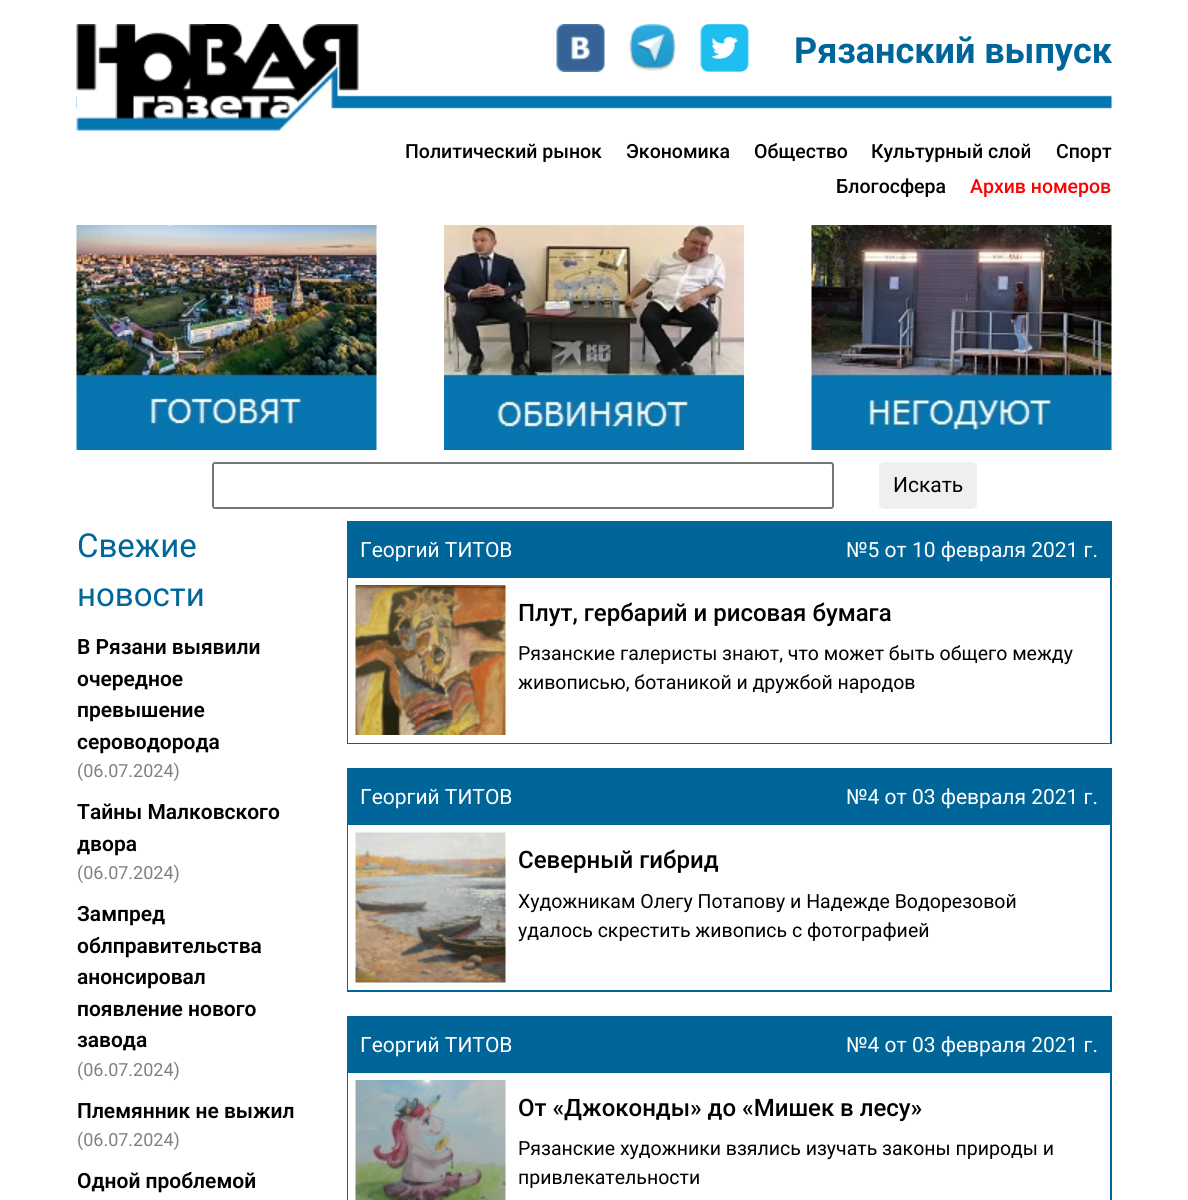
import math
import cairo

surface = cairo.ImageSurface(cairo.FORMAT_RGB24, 1188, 1200)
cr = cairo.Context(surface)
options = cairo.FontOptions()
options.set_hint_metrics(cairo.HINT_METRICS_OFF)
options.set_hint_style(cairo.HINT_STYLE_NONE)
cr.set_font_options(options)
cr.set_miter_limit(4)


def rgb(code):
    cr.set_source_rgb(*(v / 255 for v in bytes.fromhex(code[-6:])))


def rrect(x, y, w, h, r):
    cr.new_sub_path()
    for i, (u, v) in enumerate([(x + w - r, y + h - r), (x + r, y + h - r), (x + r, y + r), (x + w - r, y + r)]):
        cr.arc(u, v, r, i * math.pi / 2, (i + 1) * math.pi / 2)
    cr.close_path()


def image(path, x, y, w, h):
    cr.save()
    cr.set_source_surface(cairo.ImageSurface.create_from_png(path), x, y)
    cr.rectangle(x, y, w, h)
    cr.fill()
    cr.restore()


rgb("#ffffff")
cr.paint()
image("img/1.png", 76, 95, 1036, 14)
image("img/2.png", 76, 24, 283, 107)
image("img/3.png", 556, 24, 49, 48)
image("img/4.png", 629, 24, 47, 47)
image("img/5.png", 700, 24, 49, 48)
image("img/6.png", 76, 225, 301, 225)
image("img/7.png", 444, 225, 300, 225)
image("img/8.png", 811, 225, 301, 225)
rrect(213, 463, 620, 45, 2)
rgb("#767676")
cr.stroke()
rgb("#efefef")
rrect(879, 462, 98, 47, 5)
cr.fill()
rgb("#006699")
cr.rectangle(347, 521, 765, 223)
cr.fill()
cr.rectangle(352, 582, 754, 157)
rgb("#ffffff")
cr.set_line_width(8)
cr.stroke()
cr.rectangle(505, 585, 1, 150)
cr.fill()
image("img/9.png", 355, 585, 151, 150)
cr.rectangle(506, 586, 596, 149)
cr.fill()
rgb("#006699")
cr.rectangle(347, 768, 765, 224)
cr.fill()
cr.rectangle(352, 829, 754, 157)
rgb("#ffffff")
cr.stroke()
cr.rectangle(356, 833, 746, 149)
cr.fill()
image("img/10.png", 355, 832, 151, 151)
rgb("#006699")
cr.rectangle(347, 1016, 765, 184)
cr.fill()
cr.rectangle(352, 1077, 754, 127)
rgb("#ffffff")
cr.stroke()
cr.rectangle(505, 1080, 1, 120)
cr.fill()
image("img/11.png", 355, 1080, 151, 120)
cr.rectangle(506, 1081, 596, 119)
cr.fill()
cr.select_font_face("Roboto", cairo.FONT_SLANT_NORMAL, cairo.FONT_WEIGHT_BOLD)
cr.set_font_size(36)
rgb("#006699")
cr.move_to(794, 63)
cr.show_text("Рязанский выпуск")
cr.select_font_face("Roboto Medium")
cr.set_font_size(19.5)
rgb("#000000")
for x, y, s in [
    (405, 158, "Политический рынок"),
    (626, 158, "Экономика"),
    (754, 158, "Общество"),
    (871, 158, "Культурный слой"),
    (1056, 158, "Спорт"),
    (836, 193, "Блогосфера"),
]:
    cr.move_to(x, y)
    cr.show_text(s)
rgb("#ff0000")
cr.move_to(970, 193)
cr.show_text("Архив номеров")
cr.select_font_face("Roboto")
cr.set_font_size(21)
rgb("#000000")
cr.move_to(893, 492)
cr.show_text("Искать")
cr.set_font_size(33)
rgb("#006699")
cr.move_to(77, 557)
cr.show_text("Свежие")
cr.move_to(77, 606)
cr.show_text("новости")
cr.select_font_face("Roboto SemiBold")
cr.set_font_size(21)
rgb("#000000")
for x, y, s in [
    (77, 654, "В Рязани выявили"),
    (77, 686, "очередное"),
    (77, 717, "превышение"),
    (77, 749, "сероводорода"),
]:
    cr.move_to(x, y)
    cr.show_text(s)
cr.select_font_face("Roboto")
cr.set_font_size(18)
rgb("#808080")
cr.move_to(77, 777)
cr.show_text("(06.07.2024)")
cr.select_font_face("Roboto SemiBold")
cr.set_font_size(21)
rgb("#000000")
cr.move_to(77, 819)
cr.show_text("Тайны Малковского")
cr.move_to(77, 851)
cr.show_text("двора")
cr.select_font_face("Roboto")
cr.set_font_size(18)
rgb("#808080")
cr.move_to(77, 879)
cr.show_text("(06.07.2024)")
cr.select_font_face("Roboto SemiBold")
cr.set_font_size(21)
rgb("#000000")
for x, y, s in [
    (77, 921, "Зампред"),
    (77, 953, "облправительства"),
    (77, 984, "анонсировал"),
    (77, 1016, "появление нового"),
    (77, 1047, "завода"),
]:
    cr.move_to(x, y)
    cr.show_text(s)
cr.select_font_face("Roboto")
cr.set_font_size(18)
rgb("#808080")
cr.move_to(77, 1076)
cr.show_text("(06.07.2024)")
cr.select_font_face("Roboto SemiBold")
cr.set_font_size(21)
rgb("#000000")
cr.move_to(77, 1118)
cr.show_text("Племянник не выжил")
cr.select_font_face("Roboto")
cr.set_font_size(18)
rgb("#808080")
cr.move_to(77, 1146)
cr.show_text("(06.07.2024)")
cr.select_font_face("Roboto SemiBold")
cr.set_font_size(21)
rgb("#000000")
cr.move_to(77, 1188)
cr.show_text("Одной проблемой")
cr.select_font_face("Roboto")
rgb("#ffffff")
cr.move_to(360, 557)
cr.show_text("Георгий ТИТОВ")
cr.move_to(846, 557)
cr.show_text("№5 от 10 февраля 2021 г.")
cr.select_font_face("Roboto Medium")
cr.set_font_size(24)
rgb("#000000")
cr.move_to(518, 621)
cr.show_text("Плут, гербарий и рисовая бумага")
cr.select_font_face("Roboto")
cr.set_font_size(19.5)
cr.move_to(518, 660)
cr.show_text("Рязанские галеристы знают, что может быть общего между")
cr.move_to(518, 689)
cr.show_text("живописью, ботаникой и дружбой народов")
cr.set_font_size(21)
rgb("#ffffff")
cr.move_to(360, 804)
cr.show_text("Георгий ТИТОВ")
cr.move_to(846, 804)
cr.show_text("№4 от 03 февраля 2021 г.")
cr.select_font_face("Roboto Medium")
cr.set_font_size(24)
rgb("#000000")
cr.move_to(518, 868)
cr.show_text("Северный гибрид")
cr.select_font_face("Roboto")
cr.set_font_size(19.5)
cr.move_to(518, 908)
cr.show_text("Художникам Олегу Потапову и Надежде Водорезовой")
cr.move_to(518, 937)
cr.show_text("удалось скрестить живопись с фотографией")
cr.set_font_size(21)
rgb("#ffffff")
cr.move_to(360, 1052)
cr.show_text("Георгий ТИТОВ")
cr.move_to(846, 1052)
cr.show_text("№4 от 03 февраля 2021 г.")
cr.select_font_face("Roboto Medium")
cr.set_font_size(24)
rgb("#000000")
cr.move_to(518, 1116)
cr.show_text("От «Джоконды» до «Мишек в лесу»")
cr.select_font_face("Roboto")
cr.set_font_size(19.5)
cr.move_to(518, 1155)
cr.show_text("Рязанские художники взялись изучать законы природы и")
cr.move_to(518, 1184)
cr.show_text("привлекательности")
surface.write_to_png("page.png")
